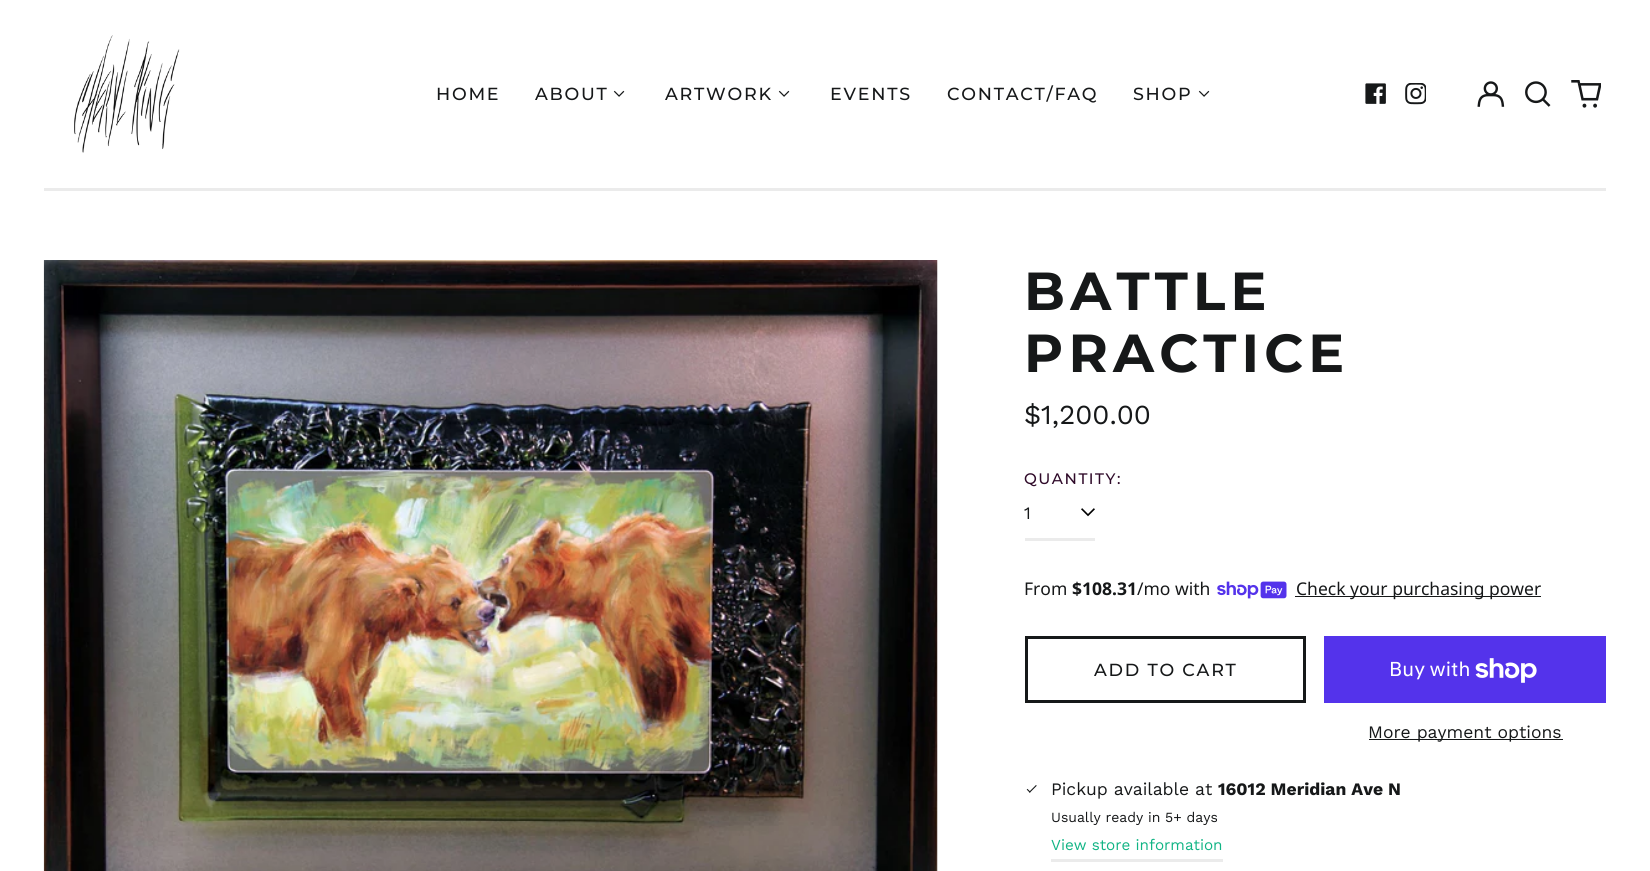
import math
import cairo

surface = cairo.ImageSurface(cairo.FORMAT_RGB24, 1650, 871)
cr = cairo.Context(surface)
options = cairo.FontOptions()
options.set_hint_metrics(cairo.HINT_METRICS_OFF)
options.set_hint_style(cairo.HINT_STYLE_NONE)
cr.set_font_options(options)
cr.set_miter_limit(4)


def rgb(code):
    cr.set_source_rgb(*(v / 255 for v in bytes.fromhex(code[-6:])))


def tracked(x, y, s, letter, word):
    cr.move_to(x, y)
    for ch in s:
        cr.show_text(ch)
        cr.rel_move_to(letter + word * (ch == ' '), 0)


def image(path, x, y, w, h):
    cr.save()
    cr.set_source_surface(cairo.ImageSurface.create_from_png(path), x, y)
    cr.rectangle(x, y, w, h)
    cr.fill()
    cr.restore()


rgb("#ffffff")
cr.paint()
rgb("#ebebeb")
cr.rectangle(44, 188, 1562, 3)
cr.fill()
image("img/1.png", 74, 35, 106, 118)
image("img/2.png", 613, 90, 12, 7)
image("img/2.png", 778, 90, 12, 7)
image("img/2.png", 1198, 90, 12, 7)
image("img/3.png", 1365, 83, 21, 21)
image("img/4.png", 1405, 83, 21, 22)
image("img/5.png", 1477, 81, 28, 26)
image("img/6.png", 1525, 81, 26, 26)
image("img/7.png", 1571, 80, 30, 28)
image("img/8.png", 43, 260, 895, 611)
image("img/9.png", 1081, 508, 14, 9)
cr.rectangle(1025, 538, 70, 3)
cr.fill()
image("img/10.png", 1217, 581, 70, 18)
rgb("#161819")
cr.rectangle(1295, 596, 246, 1)
cr.fill()
cr.rectangle(1026.5, 637.5, 278, 64)
cr.set_line_width(3)
cr.stroke()
rgb("#5433eb")
cr.rectangle(1324, 636, 282, 67)
cr.fill()
image("img/11.png", 1475, 658, 62, 25)
rgb("#161819")
cr.rectangle(1369, 739, 194, 1)
cr.fill()
image("img/12.png", 1026, 785, 11, 8)
rgb("#ebebeb")
cr.rectangle(1051, 859, 172, 3)
cr.fill()
cr.select_font_face("Montserrat Medium")
cr.set_font_size(17.5)
rgb("#161819")
for x, y, s in [
    (436, 100, "HOME"),
    (535, 100, "ABOUT"),
    (665, 100, "ARTWORK"),
    (830, 100, "EVENTS"),
    (947, 100, "CONTACT/FAQ"),
    (1133, 100, "SHOP"),
]:
    tracked(x, y, s, 1.75, 0)
cr.select_font_face("Montserrat", cairo.FONT_SLANT_NORMAL, cairo.FONT_WEIGHT_BOLD)
cr.set_font_size(53.5)
tracked(1024, 310, "BATTLE", 5.25, 0)
tracked(1024, 372, "PRACTICE", 5.25, 0)
cr.select_font_face("Work Sans")
cr.set_font_size(27.5)
cr.move_to(1024, 424)
cr.show_text("$1,200.00")
cr.select_font_face("Montserrat Medium")
cr.set_font_size(15.25)
rgb("#2f0a29")
tracked(1024, 484, "QUANTITY:", 1.5, 0)
cr.select_font_face("Work Sans")
cr.set_font_size(17.5)
rgb("#161819")
cr.move_to(1024, 519)
cr.show_text("1")
cr.select_font_face("Noto Sans")
cr.move_to(1024, 595)
cr.show_text("From")
cr.select_font_face("Noto Sans", cairo.FONT_SLANT_NORMAL, cairo.FONT_WEIGHT_BOLD)
cr.move_to(1072, 595)
cr.show_text("$108.31")
cr.select_font_face("Noto Sans")
cr.move_to(1137, 595)
cr.show_text("/mo with")
cr.move_to(1296, 595)
cr.show_text("Check your purchasing power")
cr.select_font_face("Montserrat Medium")
tracked(1094, 676, "ADD TO CART", 1.75, 0)
cr.select_font_face("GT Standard")
cr.set_font_size(20)
rgb("#ffffff")
cr.move_to(1389, 676)
cr.show_text("Buy with")
cr.select_font_face("Work Sans")
cr.set_font_size(17.5)
rgb("#161819")
cr.move_to(1368, 738)
cr.show_text("More payment options")
cr.move_to(1051, 795)
cr.show_text("Pickup available at")
cr.select_font_face("Work Sans", cairo.FONT_SLANT_NORMAL, cairo.FONT_WEIGHT_BOLD)
cr.move_to(1218, 795)
cr.show_text("16012 Meridian Ave N")
cr.select_font_face("Work Sans")
cr.set_font_size(14)
cr.move_to(1051, 822)
cr.show_text("Usually ready in 5+ days")
cr.set_font_size(15.25)
rgb("#10b484")
cr.move_to(1051, 850)
cr.show_text("View store information")
surface.write_to_png("page.png")
